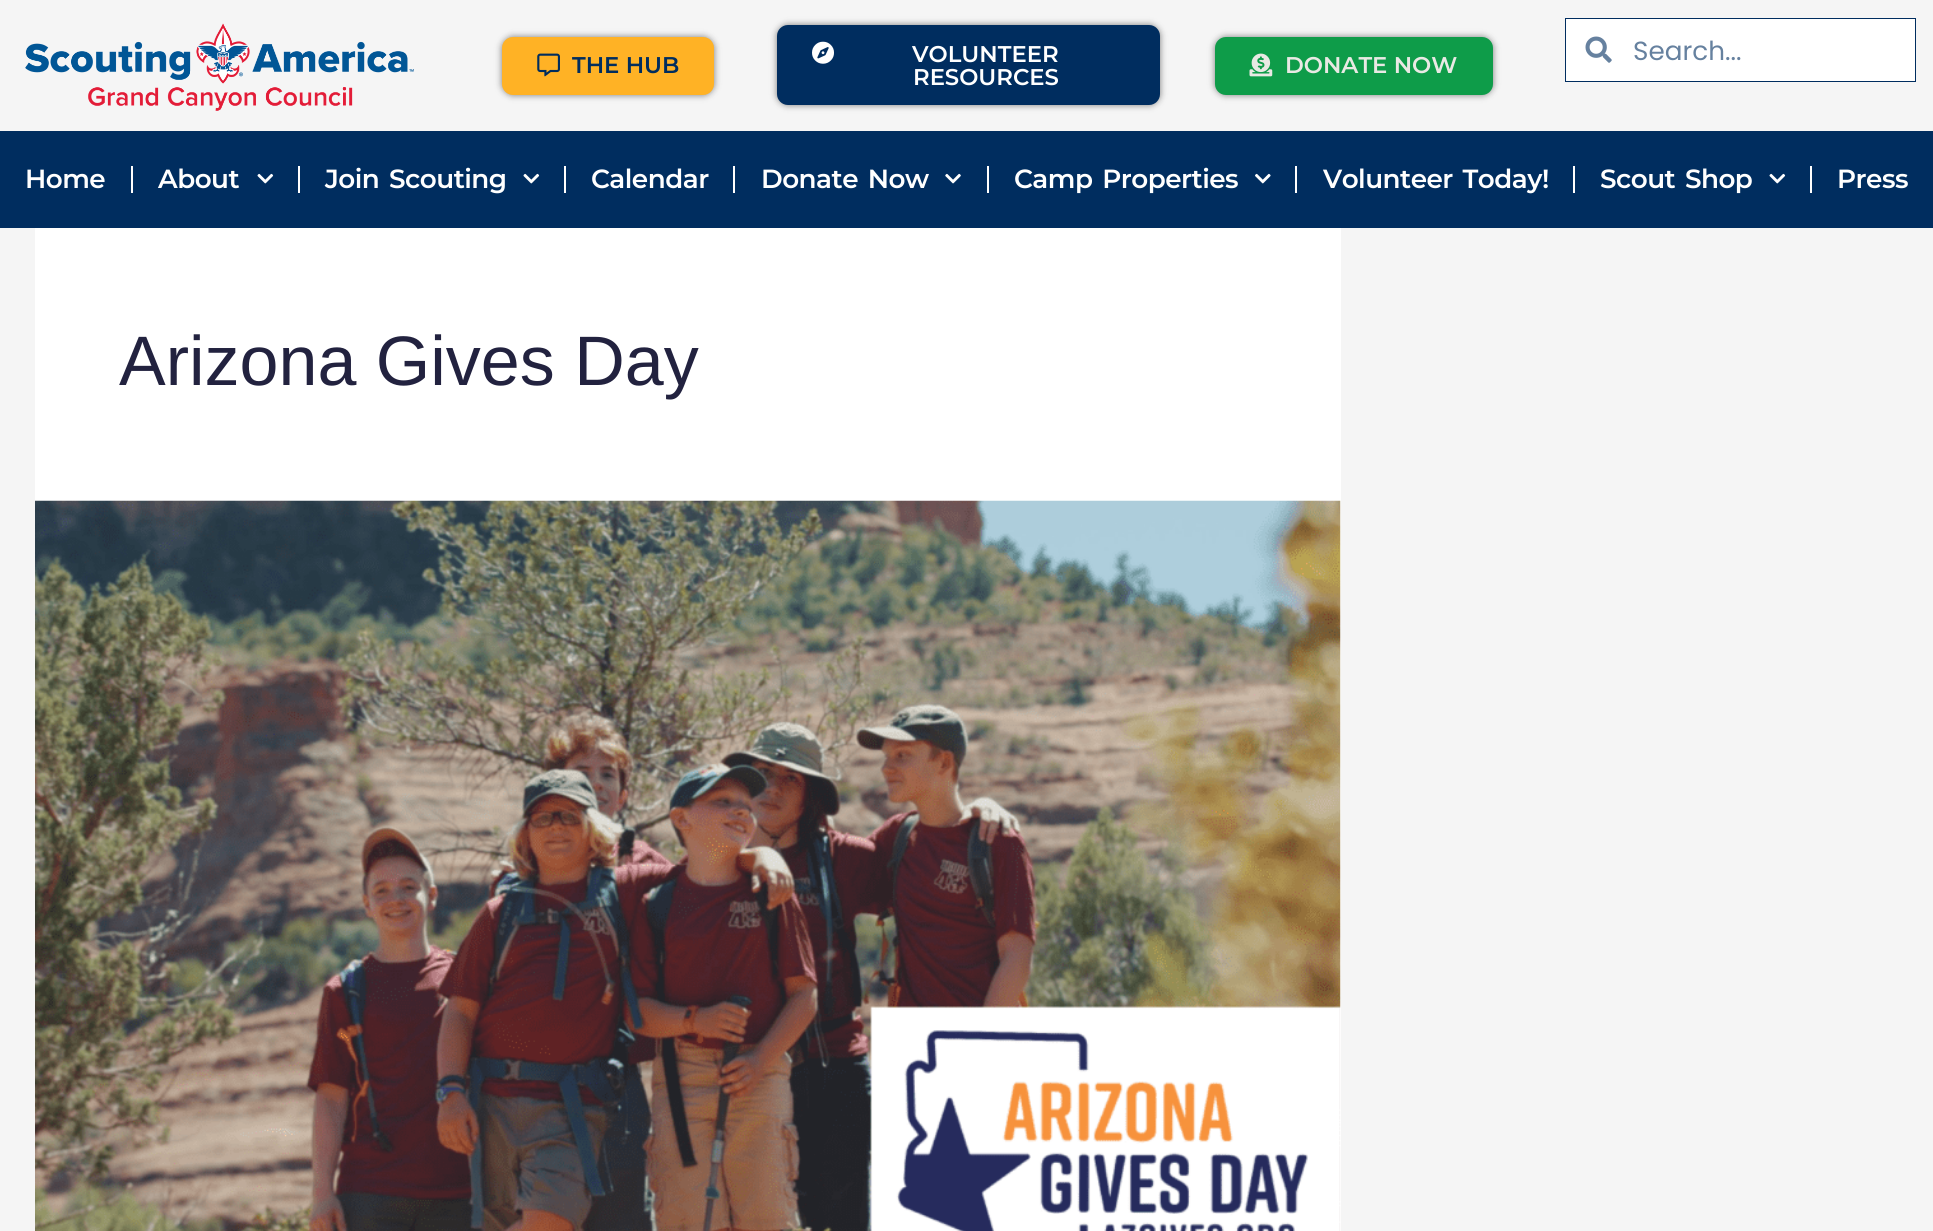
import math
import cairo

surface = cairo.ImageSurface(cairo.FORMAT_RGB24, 1933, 1231)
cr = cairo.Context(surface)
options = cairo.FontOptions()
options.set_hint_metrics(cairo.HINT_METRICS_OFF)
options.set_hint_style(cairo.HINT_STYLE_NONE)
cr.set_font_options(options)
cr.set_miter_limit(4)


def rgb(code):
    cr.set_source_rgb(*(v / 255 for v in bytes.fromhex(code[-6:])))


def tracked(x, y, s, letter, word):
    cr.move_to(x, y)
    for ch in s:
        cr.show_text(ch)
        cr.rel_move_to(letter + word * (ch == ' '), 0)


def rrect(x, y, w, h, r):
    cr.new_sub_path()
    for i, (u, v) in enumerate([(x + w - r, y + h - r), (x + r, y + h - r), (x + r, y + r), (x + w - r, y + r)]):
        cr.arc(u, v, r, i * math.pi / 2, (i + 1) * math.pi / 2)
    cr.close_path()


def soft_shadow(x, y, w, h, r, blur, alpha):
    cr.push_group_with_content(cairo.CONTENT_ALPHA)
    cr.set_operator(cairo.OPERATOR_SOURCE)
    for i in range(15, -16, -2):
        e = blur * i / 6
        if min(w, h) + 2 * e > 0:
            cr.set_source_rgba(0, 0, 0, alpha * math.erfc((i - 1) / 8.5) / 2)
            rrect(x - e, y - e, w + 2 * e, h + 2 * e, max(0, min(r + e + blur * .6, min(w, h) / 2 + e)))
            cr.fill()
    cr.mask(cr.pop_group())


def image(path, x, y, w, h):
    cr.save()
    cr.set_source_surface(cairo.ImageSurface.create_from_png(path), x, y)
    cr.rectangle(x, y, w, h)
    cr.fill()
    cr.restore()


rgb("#f5f5f5")
cr.paint()
image("img/1.png", 25, 23, 389, 88)
rgb("#000000")
soft_shadow(502, 37, 212, 58, 11, 3.5, 0.5)
rgb("#ffb225")
rrect(502, 37, 212, 58, 11)
cr.fill()
image("img/2.png", 537, 53, 23, 24)
rgb("#000000")
soft_shadow(777, 25, 383, 80, 11, 3.5, 0.5)
rgb("#002d5f")
rrect(777, 25, 383, 80, 11)
cr.fill()
image("img/3.png", 812, 41, 22, 23)
rgb("#000000")
soft_shadow(1215, 37, 278, 58, 11, 3.5, 0.5)
rgb("#0e9c49")
rrect(1215, 37, 278, 58, 11)
cr.fill()
image("img/4.png", 1249, 53, 24, 24)
cr.rectangle(1566, 19, 349, 62)
rgb("#002d5f")
cr.stroke()
rgb("#ffffff")
cr.rectangle(1566, 19, 349, 62)
cr.fill()
image("img/5.png", 1585, 36, 27, 27)
rgb("#002d5f")
cr.rectangle(0, 131, 1933, 97)
cr.fill()
rgb("#ffffff")
cr.rectangle(131, 166, 2, 27)
cr.fill()
image("img/6.png", 257, 173, 17, 11)
cr.rectangle(298, 166, 2, 27)
cr.fill()
image("img/6.png", 523, 173, 17, 11)
cr.rectangle(564, 166, 2, 27)
cr.fill()
cr.rectangle(733, 166, 2, 27)
cr.fill()
image("img/7.png", 945, 173, 16, 11)
cr.rectangle(987, 166, 2, 27)
cr.fill()
image("img/8.png", 1255, 173, 16, 11)
cr.rectangle(1295, 166, 2, 27)
cr.fill()
cr.rectangle(1573, 166, 2, 27)
cr.fill()
image("img/6.png", 1769, 173, 17, 11)
for x, y, w, h, color in [
    (1810, 166, 2, 27, "#ffffff"),
    (35, 228, 1306, 273, "#ffffff"),
    (1340, 501, 1, 730, "#ffffff"),
]:
    rgb(color)
    cr.rectangle(x, y, w, h)
    cr.fill()
image("img/9.png", 35, 500, 1306, 731)
cr.select_font_face("Montserrat SemiBold")
cr.set_font_size(22.75)
rgb("#002d5e")
cr.move_to(572, 73)
cr.show_text("THE HUB")
rgb("#ffffff")
cr.move_to(912, 62)
cr.show_text("VOLUNTEER")
cr.move_to(913, 85)
cr.show_text("RESOURCES")
rgb("#e9e9e4")
cr.move_to(1285, 73)
cr.show_text("DONATE NOW")
cr.select_font_face("Poppins")
cr.set_font_size(26.25)
rgb("#66819f")
cr.move_to(1633, 60)
cr.show_text("Search...")
cr.select_font_face("Montserrat SemiBold")
rgb("#ffffff")
tracked(25, 188, "Home", -0.5, 0)
tracked(158, 188, "About", -0.5, 0)
tracked(325, 188, "Join Scouting", -0.5, 3)
tracked(591, 188, "Calendar", -0.5, 0)
for x, y, s in [
    (761, 188, "Donate Now"),
    (1014, 188, "Camp Properties"),
    (1323, 188, "Volunteer Today!"),
    (1600, 188, "Scout Shop"),
]:
    tracked(x, y, s, -0.5, 3)
tracked(1837, 188, "Press", -0.5, 0)
cr.select_font_face("Liberation Sans")
cr.set_font_size(70)
rgb("#22223f")
cr.move_to(119, 385)
cr.show_text("Arizona Gives Day")
surface.write_to_png("page.png")
